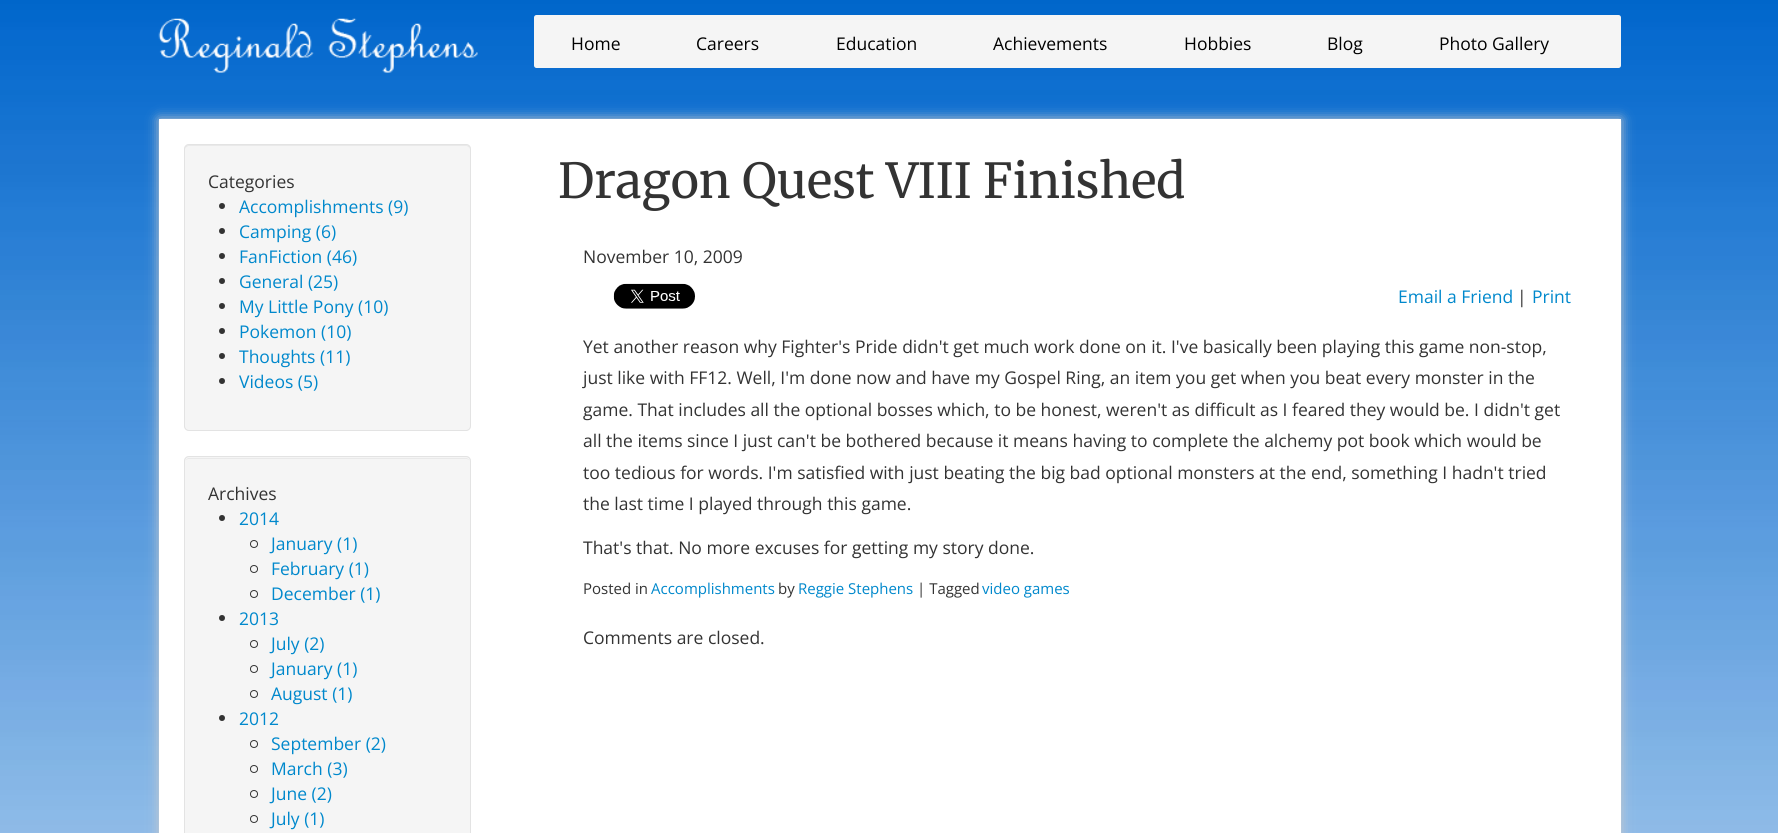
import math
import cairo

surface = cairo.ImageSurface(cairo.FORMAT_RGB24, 1778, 833)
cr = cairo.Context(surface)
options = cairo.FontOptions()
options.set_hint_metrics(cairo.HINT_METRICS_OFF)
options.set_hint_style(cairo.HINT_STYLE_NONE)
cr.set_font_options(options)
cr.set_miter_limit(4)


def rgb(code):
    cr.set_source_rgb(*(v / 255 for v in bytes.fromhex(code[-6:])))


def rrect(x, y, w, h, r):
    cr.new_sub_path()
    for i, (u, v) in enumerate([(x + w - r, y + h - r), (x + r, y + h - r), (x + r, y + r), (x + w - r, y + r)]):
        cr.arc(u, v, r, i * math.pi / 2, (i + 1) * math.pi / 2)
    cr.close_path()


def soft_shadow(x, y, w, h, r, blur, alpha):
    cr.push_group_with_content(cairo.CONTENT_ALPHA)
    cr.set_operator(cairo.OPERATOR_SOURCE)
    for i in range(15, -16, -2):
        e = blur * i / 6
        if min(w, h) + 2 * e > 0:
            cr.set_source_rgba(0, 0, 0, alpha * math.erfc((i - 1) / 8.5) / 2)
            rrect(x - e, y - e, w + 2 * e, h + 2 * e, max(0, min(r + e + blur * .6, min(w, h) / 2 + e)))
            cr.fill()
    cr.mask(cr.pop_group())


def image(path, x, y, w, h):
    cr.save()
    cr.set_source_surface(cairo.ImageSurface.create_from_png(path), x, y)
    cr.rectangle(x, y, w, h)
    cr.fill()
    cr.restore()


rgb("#ffffff")
cr.paint()
image("img/1.png", 0, 0, 1778, 833)
image("img/2.png", 158, 18, 320, 55)
rgb("#f5f5f5")
rrect(534, 15, 1087, 53, 2.5)
cr.fill()
rgb("#cccccc")
soft_shadow(159, 119, 1462, 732, 0, 6, 1)
rgb("#ffffff")
cr.rectangle(159, 119, 1462, 714)
cr.fill()
rgb("#f5f5f5")
rrect(184, 144, 287, 287, 5)
cr.fill()
rgb("#e9e9e9")
cr.new_path()
cr.move_to(189, 146)
cr.line_to(466, 146)
cr.curve_to(468, 146, 470, 148, 470, 150)
cr.curve_to(470, 147, 469, 145, 466, 145)
cr.line_to(189, 145)
cr.curve_to(186, 145, 185, 147, 185, 150)
cr.curve_to(185, 148, 187, 146, 189, 146)
cr.close_path()
cr.fill()
rrect(184.5, 144.5, 286, 286, 4.5)
rgb("#e3e3e3")
cr.set_line_width(1)
cr.stroke()
rgb("#333333")
cr.arc(222, 206, 3, 0, 2 * math.pi)
cr.fill()
cr.arc(222, 231, 3, 0, 2 * math.pi)
cr.fill()
cr.arc(222, 256, 3, 0, 2 * math.pi)
cr.fill()
cr.arc(222, 281, 3, 0, 2 * math.pi)
cr.fill()
cr.arc(222, 306, 3, 0, 2 * math.pi)
cr.fill()
cr.arc(222, 331, 3, 0, 2 * math.pi)
cr.fill()
cr.arc(222, 356, 3, 0, 2 * math.pi)
cr.fill()
cr.arc(222, 381, 3, 0, 2 * math.pi)
cr.fill()
rgb("#f5f5f5")
rrect(184, 456, 287, 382, 5)
cr.fill()
rgb("#e9e9e9")
cr.new_path()
cr.move_to(189, 459)
cr.line_to(466, 459)
cr.curve_to(468, 459, 470, 460, 470, 462)
cr.curve_to(470, 460, 468, 458, 466, 458)
cr.line_to(189, 458)
cr.curve_to(187, 458, 185, 460, 185, 462)
cr.curve_to(185, 460, 187, 459, 189, 459)
cr.close_path()
cr.fill()
rrect(184.5, 456.5, 286, 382, 4.5)
rgb("#e3e3e3")
cr.stroke()
rgb("#333333")
cr.arc(222, 518, 3, 0, 2 * math.pi)
cr.fill()
cr.arc(254, 544, 3.5, 0, 2 * math.pi)
cr.stroke()
cr.arc(254, 569, 3.5, 0, 2 * math.pi)
cr.stroke()
cr.arc(254, 594, 3.5, 0, 2 * math.pi)
cr.stroke()
cr.arc(222, 618, 3, 0, 2 * math.pi)
cr.fill()
cr.arc(254, 644, 3.5, 0, 2 * math.pi)
cr.stroke()
cr.arc(254, 669, 3.5, 0, 2 * math.pi)
cr.stroke()
cr.arc(254, 694, 3.5, 0, 2 * math.pi)
cr.stroke()
cr.arc(222, 718, 3, 0, 2 * math.pi)
cr.fill()
cr.arc(254, 744, 3.5, 0, 2 * math.pi)
cr.stroke()
cr.arc(254, 769, 3.5, 0, 2 * math.pi)
cr.stroke()
cr.arc(254, 794, 3.5, 0, 2 * math.pi)
cr.stroke()
cr.arc(254, 819, 3.5, 0, 2 * math.pi)
cr.stroke()
image("img/3.png", 613, 283, 82, 26)
cr.select_font_face("Open Sans")
cr.set_font_size(17.5)
rgb("#000000")
for x, y, s in [
    (571, 50, "Home"),
    (696, 50, "Careers"),
    (836, 50, "Education"),
    (993, 50, "Achievements"),
    (1184, 50, "Hobbies"),
    (1327, 50, "Blog"),
    (1439, 50, "Photo Gallery"),
]:
    cr.move_to(x, y)
    cr.show_text(s)
rgb("#333333")
cr.move_to(208, 188)
cr.show_text("Categories")
rgb("#0088cc")
for x, y, s in [
    (239, 213, "Accomplishments (9)"),
    (239, 238, "Camping (6)"),
    (239, 263, "FanFiction (46)"),
    (239, 288, "General (25)"),
    (239, 313, "My Little Pony (10)"),
    (239, 338, "Pokemon (10)"),
    (239, 363, "Thoughts (11)"),
    (239, 388, "Videos (5)"),
]:
    cr.move_to(x, y)
    cr.show_text(s)
rgb("#333333")
cr.move_to(208, 500)
cr.show_text("Archives")
rgb("#0088cc")
for x, y, s in [
    (239, 525, "2014"),
    (271, 550, "January (1)"),
    (271, 575, "February (1)"),
    (271, 600, "December (1)"),
    (239, 625, "2013"),
    (271, 650, "July (2)"),
    (271, 675, "January (1)"),
    (271, 700, "August (1)"),
    (239, 725, "2012"),
    (271, 750, "September (2)"),
    (271, 775, "March (3)"),
    (271, 800, "June (2)"),
    (271, 825, "July (1)"),
]:
    cr.move_to(x, y)
    cr.show_text(s)
cr.select_font_face("Merriweather")
cr.set_font_size(48.1)
rgb("#333333")
cr.move_to(558, 198)
cr.show_text("Dragon Quest VIII Finished")
cr.select_font_face("Open Sans")
cr.set_font_size(17.5)
cr.move_to(583, 263)
cr.show_text("November 10, 2009")
rgb("#0088cc")
cr.move_to(1398, 303)
cr.show_text("Email a Friend")
rgb("#333333")
cr.move_to(1517, 303)
cr.show_text("|")
rgb("#0088cc")
cr.move_to(1532, 303)
cr.show_text("Print")
rgb("#333333")
for x, y, s in [
    (583, 353, "Yet another reason why Fighter's Pride didn't get much work done on it. I've basically been playing this game non-stop,"),
    (583, 384, "just like with FF12. Well, I'm done now and have my Gospel Ring, an item you get when you beat every monster in the"),
    (583, 416, "game. That includes all the optional bosses which, to be honest, weren't as difficult as I feared they would be. I didn't get"),
    (583, 447, "all the items since I just can't be bothered because it means having to complete the alchemy pot book which would be"),
    (583, 479, "too tedious for words. I'm satisfied with just beating the big bad optional monsters at the end, something I hadn't tried"),
    (583, 510, "the last time I played through this game."),
    (583, 554, "That's that. No more excuses for getting my story done."),
]:
    cr.move_to(x, y)
    cr.show_text(s)
cr.set_font_size(15)
cr.move_to(583, 594)
cr.show_text("Posted in")
rgb("#0088cc")
cr.move_to(651, 594)
cr.show_text("Accomplishments")
rgb("#333333")
cr.move_to(778, 594)
cr.show_text("by")
rgb("#0088cc")
cr.move_to(798, 594)
cr.show_text("Reggie Stephens")
rgb("#333333")
cr.move_to(917, 594)
cr.show_text("| Tagged")
rgb("#0088cc")
cr.move_to(982, 594)
cr.show_text("video games")
cr.set_font_size(17.5)
rgb("#333333")
cr.move_to(583, 644)
cr.show_text("Comments are closed.")
surface.write_to_png("page.png")
